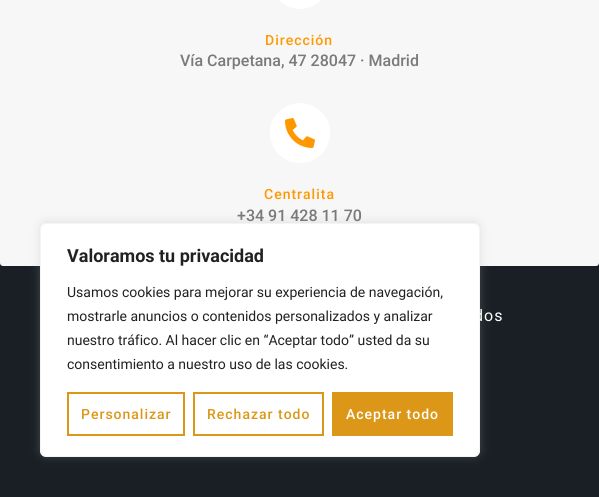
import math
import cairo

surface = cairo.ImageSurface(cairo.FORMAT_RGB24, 599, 497)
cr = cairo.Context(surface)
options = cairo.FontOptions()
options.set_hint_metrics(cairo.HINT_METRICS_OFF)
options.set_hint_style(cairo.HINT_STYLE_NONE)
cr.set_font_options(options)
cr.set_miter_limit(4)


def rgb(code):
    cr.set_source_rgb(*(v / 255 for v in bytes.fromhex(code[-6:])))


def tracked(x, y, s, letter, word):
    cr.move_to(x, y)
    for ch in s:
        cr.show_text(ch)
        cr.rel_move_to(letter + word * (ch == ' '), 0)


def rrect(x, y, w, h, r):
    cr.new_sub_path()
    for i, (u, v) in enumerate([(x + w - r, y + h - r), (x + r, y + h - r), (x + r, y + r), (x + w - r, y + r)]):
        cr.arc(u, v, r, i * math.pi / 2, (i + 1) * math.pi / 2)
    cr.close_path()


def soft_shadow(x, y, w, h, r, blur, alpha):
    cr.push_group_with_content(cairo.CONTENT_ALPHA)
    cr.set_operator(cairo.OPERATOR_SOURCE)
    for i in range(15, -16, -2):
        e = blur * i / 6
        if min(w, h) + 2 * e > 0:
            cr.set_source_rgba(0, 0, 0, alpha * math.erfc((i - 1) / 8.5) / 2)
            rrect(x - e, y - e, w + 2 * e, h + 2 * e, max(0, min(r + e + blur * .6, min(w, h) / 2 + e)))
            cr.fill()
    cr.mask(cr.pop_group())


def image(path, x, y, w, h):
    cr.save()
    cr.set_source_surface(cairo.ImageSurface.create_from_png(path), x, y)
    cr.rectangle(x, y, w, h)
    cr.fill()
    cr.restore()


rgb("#191f24")
cr.paint()
rgb("#f7f7f7")
rrect(0, -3, 599, 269, 3)
cr.fill()
rgb("#ffffff")
rrect(270, -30, 60, 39, 30)
cr.fill()
cr.arc(300, 133, 30, 0, 2 * math.pi)
cr.fill()
image("img/1.png", 285, 118, 30, 30)
rgb("#acabab")
soft_shadow(40, 222, 440, 234, 6, 5, 0.3)
rgb("#ffffff")
rrect(40.5, 223.5, 439, 233, 5.5)
cr.fill_preserve()
rgb("#f4f4f4")
cr.set_line_width(1)
cr.stroke()
cr.rectangle(68, 393, 116, 42)
rgb("#dc9718")
cr.set_line_width(2)
cr.stroke()
cr.rectangle(194, 393, 129, 42)
cr.stroke()
cr.rectangle(332, 392, 121, 44)
cr.fill()
cr.select_font_face("Roboto Medium")
cr.set_font_size(14)
rgb("#ff9800")
tracked(265, 45, "Dirección", 1, 0)
cr.set_font_size(16)
rgb("#7a7a7a")
cr.move_to(180, 66)
cr.show_text("Vía Carpetana, 47 28047 · Madrid")
cr.set_font_size(14)
rgb("#ff9800")
tracked(264, 199, "Centralita", 1, 0)
cr.set_font_size(16)
rgb("#7a7a7a")
cr.move_to(237, 221)
cr.show_text("+34 91 428 11 70")
cr.select_font_face("Roboto")
rgb("#ffffff")
tracked(474, 321, "dos", 1, 0)
cr.select_font_face("Roboto", cairo.FONT_SLANT_NORMAL, cairo.FONT_WEIGHT_BOLD)
cr.set_font_size(18)
rgb("#212121")
cr.move_to(67, 262)
cr.show_text("Valoramos tu privacidad")
cr.select_font_face("Roboto")
cr.set_font_size(14)
for x, y, s in [
    (67, 297, "Usamos cookies para mejorar su experiencia de navegación,"),
    (67, 321, "mostrarle anuncios o contenidos personalizados y analizar"),
    (67, 345, "nuestro tráfico. Al hacer clic en “Aceptar todo” usted da su"),
    (67, 369, "consentimiento a nuestro uso de las cookies."),
]:
    cr.move_to(x, y)
    cr.show_text(s)
cr.select_font_face("Roboto Medium")
rgb("#dc9718")
tracked(81, 419, "Personalizar", 1, 0)
tracked(207, 419, "Rechazar todo", 1, 0)
rgb("#ffffff")
tracked(346, 419, "Aceptar todo", 1, 0)
surface.write_to_png("page.png")
